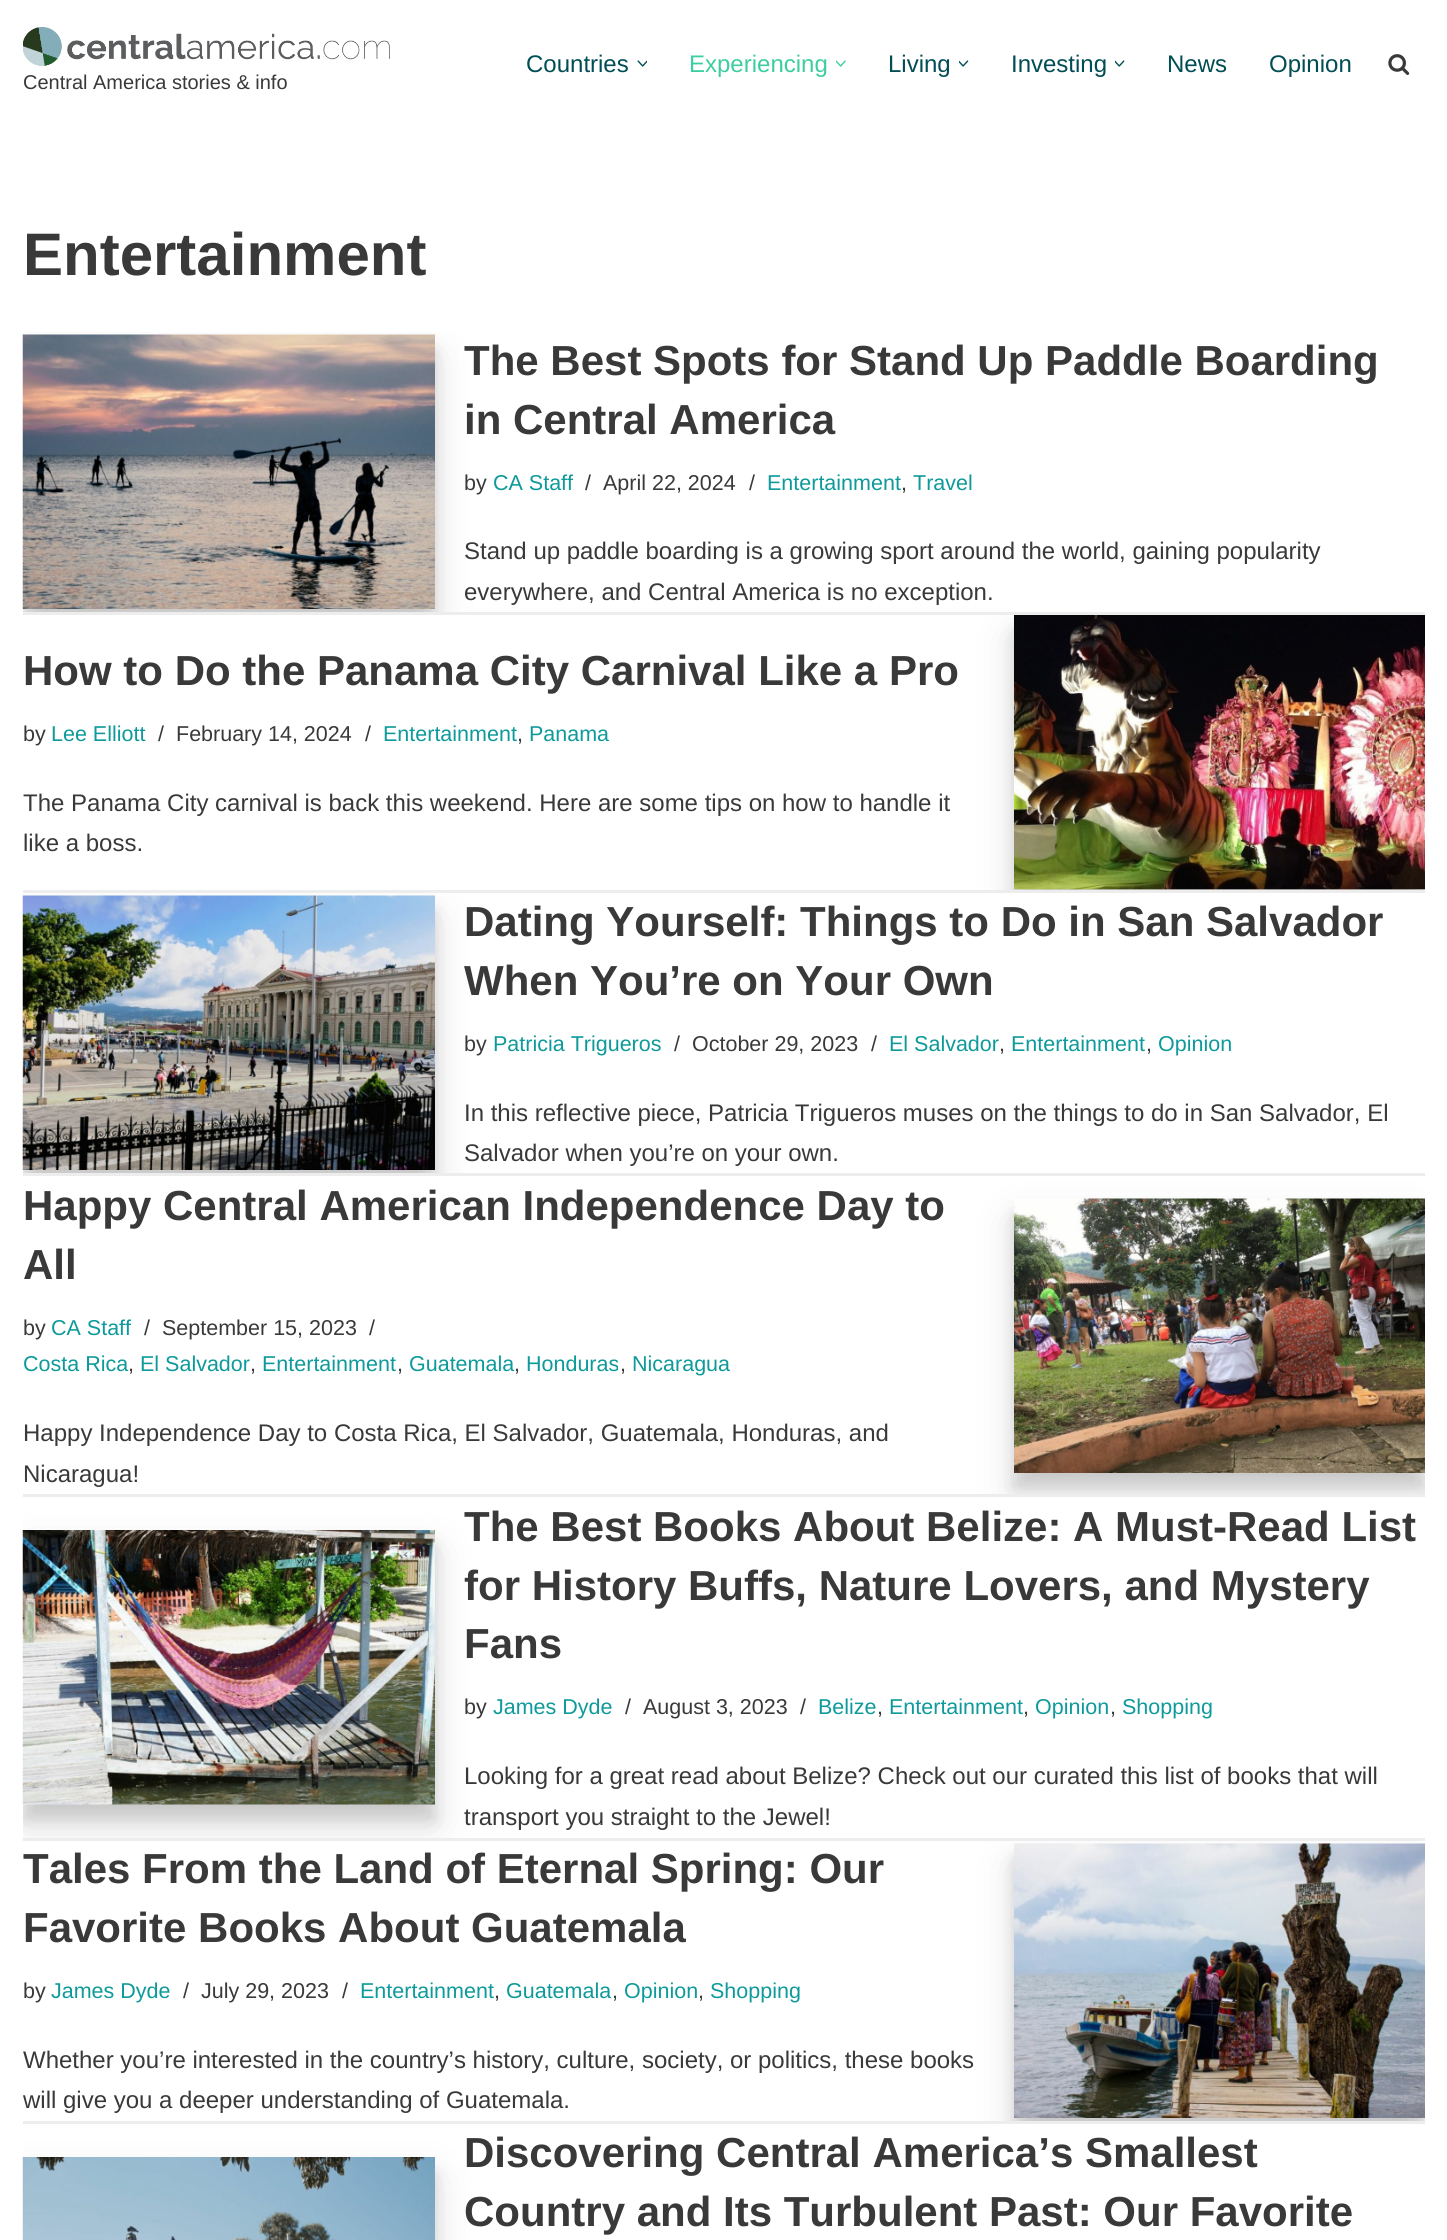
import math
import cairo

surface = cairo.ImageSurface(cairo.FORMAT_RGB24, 1447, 2240)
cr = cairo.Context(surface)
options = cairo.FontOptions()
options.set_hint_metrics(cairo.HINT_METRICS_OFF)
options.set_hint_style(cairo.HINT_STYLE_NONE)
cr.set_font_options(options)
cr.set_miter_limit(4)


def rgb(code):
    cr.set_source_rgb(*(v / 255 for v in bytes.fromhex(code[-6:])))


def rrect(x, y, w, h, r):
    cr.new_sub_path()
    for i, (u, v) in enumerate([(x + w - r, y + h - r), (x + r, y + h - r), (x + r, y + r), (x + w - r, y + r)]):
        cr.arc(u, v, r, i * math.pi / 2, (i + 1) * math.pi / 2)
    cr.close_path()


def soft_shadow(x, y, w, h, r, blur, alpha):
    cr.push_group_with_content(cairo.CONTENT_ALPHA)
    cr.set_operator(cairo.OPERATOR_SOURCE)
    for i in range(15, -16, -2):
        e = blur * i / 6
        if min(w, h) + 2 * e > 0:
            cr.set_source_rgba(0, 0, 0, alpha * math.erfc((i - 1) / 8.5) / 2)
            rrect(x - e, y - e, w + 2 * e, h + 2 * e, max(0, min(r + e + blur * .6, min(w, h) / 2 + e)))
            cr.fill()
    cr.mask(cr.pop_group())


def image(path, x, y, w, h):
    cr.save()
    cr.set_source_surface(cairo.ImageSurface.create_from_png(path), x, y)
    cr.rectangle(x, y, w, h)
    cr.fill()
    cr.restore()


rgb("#ffffff")
cr.paint()
image("img/1.png", 637, 60, 10, 7)
image("img/2.png", 836, 60, 10, 7)
image("img/3.png", 959, 60, 10, 7)
image("img/4.png", 1115, 60, 10, 7)
image("img/5.png", 1388, 54, 22, 21)
image("img/6.png", 23, 27, 367, 39)
rgb("#ededed")
cr.rectangle(23, 612, 1402, 3)
cr.fill()
cr.save()
cr.rectangle(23, 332, 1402, 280)
cr.clip()
rgb("#000000")
soft_shadow(23, 350, 412, 274, 0, 7.5, 0.12)
soft_shadow(23, 356, 412, 274, 0, 21, 0.12)
cr.restore()
image("img/7.png", 22, 334, 413, 275)
cr.rectangle(23, 890, 1402, 3)
cr.fill()
cr.save()
cr.rectangle(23, 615, 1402, 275)
cr.clip()
rgb("#000000")
soft_shadow(1014, 630, 411, 275, 0, 7.5, 0.12)
soft_shadow(1014, 636, 411, 275, 0, 21, 0.12)
cr.restore()
image("img/8.png", 1014, 615, 411, 275)
cr.rectangle(23, 1173, 1402, 3)
cr.fill()
cr.save()
cr.rectangle(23, 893, 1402, 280)
cr.clip()
rgb("#000000")
soft_shadow(23, 911, 412, 274, 0, 7.5, 0.12)
soft_shadow(23, 917, 412, 274, 0, 21, 0.12)
cr.restore()
image("img/9.png", 22, 895, 413, 275)
cr.rectangle(23, 1494, 1402, 3)
cr.fill()
cr.save()
cr.rectangle(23, 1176, 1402, 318)
cr.clip()
rgb("#000000")
soft_shadow(1014, 1214, 411, 274, 0, 7.5, 0.12)
soft_shadow(1014, 1220, 411, 274, 0, 21, 0.12)
cr.restore()
image("img/10.png", 1014, 1198, 411, 275)
cr.rectangle(23, 1838, 1402, 3)
cr.fill()
cr.save()
cr.rectangle(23, 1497, 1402, 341)
cr.clip()
rgb("#000000")
soft_shadow(23, 1545, 412, 275, 0, 7.5, 0.12)
soft_shadow(23, 1551, 412, 275, 0, 21, 0.12)
cr.restore()
image("img/11.png", 22, 1530, 413, 275)
cr.rectangle(23, 2121, 1402, 3)
cr.fill()
cr.save()
cr.rectangle(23, 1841, 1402, 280)
cr.clip()
rgb("#000000")
soft_shadow(1014, 1859, 411, 274, 0, 7.5, 0.12)
soft_shadow(1014, 1865, 411, 274, 0, 21, 0.12)
cr.restore()
image("img/12.png", 1014, 1843, 411, 275)
cr.save()
cr.rectangle(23, 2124, 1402, 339)
cr.clip()
rgb("#000000")
soft_shadow(23, 2172, 412, 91, 0, 7.5, 0.12)
soft_shadow(23, 2178, 412, 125, 0, 21, 0.12)
cr.restore()
image("img/13.png", 22, 2157, 413, 83)
cr.select_font_face("Liberation Sans")
cr.set_font_size(24)
rgb("#004d54")
cr.move_to(526, 72)
cr.show_text("Countries")
rgb("#3dcea0")
cr.move_to(689, 72)
cr.show_text("Experiencing")
rgb("#004d54")
for x, y, s in [
    (888, 72, "Living"),
    (1011, 72, "Investing"),
    (1167, 72, "News"),
    (1269, 72, "Opinion"),
]:
    cr.move_to(x, y)
    cr.show_text(s)
cr.set_font_size(20)
rgb("#393939")
cr.move_to(23, 89)
cr.show_text("Central America stories & info")
cr.select_font_face("Liberation Sans", cairo.FONT_SLANT_NORMAL, cairo.FONT_WEIGHT_BOLD)
cr.set_font_size(60)
cr.move_to(23, 275)
cr.show_text("Entertainment")
cr.set_font_size(42)
cr.move_to(464, 375)
cr.show_text("The Best Spots for Stand Up Paddle Boarding")
cr.move_to(464, 434)
cr.show_text("in Central America")
cr.select_font_face("Liberation Sans")
cr.set_font_size(21.5)
cr.move_to(464, 490)
cr.show_text("by")
rgb("#0e9a9a")
cr.move_to(493, 490)
cr.show_text("CA Staff")
rgb("#393939")
for x, y, s in [
    (585, 490, "/"),
    (603, 490, "April 22, 2024"),
    (749, 490, "/"),
]:
    cr.move_to(x, y)
    cr.show_text(s)
rgb("#0e9a9a")
cr.move_to(767, 490)
cr.show_text("Entertainment")
rgb("#393939")
cr.move_to(901, 490)
cr.show_text(",")
rgb("#0e9a9a")
cr.move_to(913, 490)
cr.show_text("Travel")
cr.set_font_size(24)
rgb("#393939")
cr.move_to(464, 559)
cr.show_text("Stand up paddle boarding is a growing sport around the world, gaining popularity")
cr.move_to(464, 600)
cr.show_text("everywhere, and Central America is no exception.")
cr.select_font_face("Liberation Sans", cairo.FONT_SLANT_NORMAL, cairo.FONT_WEIGHT_BOLD)
cr.set_font_size(42)
cr.move_to(23, 685)
cr.show_text("How to Do the Panama City Carnival Like a Pro")
cr.select_font_face("Liberation Sans")
cr.set_font_size(21.5)
cr.move_to(23, 741)
cr.show_text("by")
rgb("#0e9a9a")
cr.move_to(51, 741)
cr.show_text("Lee Elliott")
rgb("#393939")
for x, y, s in [
    (158, 741, "/"),
    (176, 741, "February 14, 2024"),
    (365, 741, "/"),
]:
    cr.move_to(x, y)
    cr.show_text(s)
rgb("#0e9a9a")
cr.move_to(383, 741)
cr.show_text("Entertainment")
rgb("#393939")
cr.move_to(517, 741)
cr.show_text(",")
rgb("#0e9a9a")
cr.move_to(529, 741)
cr.show_text("Panama")
cr.set_font_size(24)
rgb("#393939")
cr.move_to(23, 811)
cr.show_text("The Panama City carnival is back this weekend. Here are some tips on how to handle it")
cr.move_to(23, 851)
cr.show_text("like a boss.")
cr.select_font_face("Liberation Sans", cairo.FONT_SLANT_NORMAL, cairo.FONT_WEIGHT_BOLD)
cr.set_font_size(42)
cr.move_to(464, 936)
cr.show_text("Dating Yourself: Things to Do in San Salvador")
cr.move_to(464, 995)
cr.show_text("When You’re on Your Own")
cr.select_font_face("Liberation Sans")
cr.set_font_size(21.5)
cr.move_to(464, 1051)
cr.show_text("by")
rgb("#0e9a9a")
cr.move_to(493, 1051)
cr.show_text("Patricia Trigueros")
rgb("#393939")
for x, y, s in [
    (674, 1051, "/"),
    (692, 1051, "October 29, 2023"),
    (871, 1051, "/"),
]:
    cr.move_to(x, y)
    cr.show_text(s)
rgb("#0e9a9a")
cr.move_to(889, 1051)
cr.show_text("El Salvador")
rgb("#393939")
cr.move_to(999, 1051)
cr.show_text(",")
rgb("#0e9a9a")
cr.move_to(1011, 1051)
cr.show_text("Entertainment")
rgb("#393939")
cr.move_to(1146, 1051)
cr.show_text(",")
rgb("#0e9a9a")
cr.move_to(1158, 1051)
cr.show_text("Opinion")
cr.set_font_size(24)
rgb("#393939")
cr.move_to(464, 1121)
cr.show_text("In this reflective piece, Patricia Trigueros muses on the things to do in San Salvador, El")
cr.move_to(464, 1161)
cr.show_text("Salvador when you’re on your own.")
cr.select_font_face("Liberation Sans", cairo.FONT_SLANT_NORMAL, cairo.FONT_WEIGHT_BOLD)
cr.set_font_size(42)
cr.move_to(23, 1220)
cr.show_text("Happy Central American Independence Day to")
cr.move_to(23, 1279)
cr.show_text("All")
cr.select_font_face("Liberation Sans")
cr.set_font_size(21.5)
cr.move_to(23, 1335)
cr.show_text("by")
rgb("#0e9a9a")
cr.move_to(51, 1335)
cr.show_text("CA Staff")
rgb("#393939")
for x, y, s in [
    (144, 1335, "/"),
    (162, 1335, "September 15, 2023"),
    (369, 1335, "/"),
]:
    cr.move_to(x, y)
    cr.show_text(s)
rgb("#0e9a9a")
cr.move_to(23, 1371)
cr.show_text("Costa Rica")
rgb("#393939")
cr.move_to(128, 1371)
cr.show_text(",")
rgb("#0e9a9a")
cr.move_to(140, 1371)
cr.show_text("El Salvador")
rgb("#393939")
cr.move_to(250, 1371)
cr.show_text(",")
rgb("#0e9a9a")
cr.move_to(262, 1371)
cr.show_text("Entertainment")
rgb("#393939")
cr.move_to(397, 1371)
cr.show_text(",")
rgb("#0e9a9a")
cr.move_to(409, 1371)
cr.show_text("Guatemala")
rgb("#393939")
cr.move_to(514, 1371)
cr.show_text(",")
rgb("#0e9a9a")
cr.move_to(526, 1371)
cr.show_text("Honduras")
rgb("#393939")
cr.move_to(620, 1371)
cr.show_text(",")
rgb("#0e9a9a")
cr.move_to(632, 1371)
cr.show_text("Nicaragua")
cr.set_font_size(24)
rgb("#393939")
cr.move_to(23, 1441)
cr.show_text("Happy Independence Day to Costa Rica, El Salvador, Guatemala, Honduras, and")
cr.move_to(23, 1482)
cr.show_text("Nicaragua!")
cr.select_font_face("Liberation Sans", cairo.FONT_SLANT_NORMAL, cairo.FONT_WEIGHT_BOLD)
cr.set_font_size(42)
for x, y, s in [
    (464, 1541, "The Best Books About Belize: A Must-Read List"),
    (464, 1600, "for History Buffs, Nature Lovers, and Mystery"),
    (464, 1658, "Fans"),
]:
    cr.move_to(x, y)
    cr.show_text(s)
cr.select_font_face("Liberation Sans")
cr.set_font_size(21.5)
cr.move_to(464, 1714)
cr.show_text("by")
rgb("#0e9a9a")
cr.move_to(493, 1714)
cr.show_text("James Dyde")
rgb("#393939")
for x, y, s in [
    (625, 1714, "/"),
    (643, 1714, "August 3, 2023"),
    (800, 1714, "/"),
]:
    cr.move_to(x, y)
    cr.show_text(s)
rgb("#0e9a9a")
cr.move_to(818, 1714)
cr.show_text("Belize")
rgb("#393939")
cr.move_to(877, 1714)
cr.show_text(",")
rgb("#0e9a9a")
cr.move_to(889, 1714)
cr.show_text("Entertainment")
rgb("#393939")
cr.move_to(1023, 1714)
cr.show_text(",")
rgb("#0e9a9a")
cr.move_to(1035, 1714)
cr.show_text("Opinion")
rgb("#393939")
cr.move_to(1110, 1714)
cr.show_text(",")
rgb("#0e9a9a")
cr.move_to(1122, 1714)
cr.show_text("Shopping")
cr.set_font_size(24)
rgb("#393939")
cr.move_to(464, 1784)
cr.show_text("Looking for a great read about Belize? Check out our curated this list of books that will")
cr.move_to(464, 1825)
cr.show_text("transport you straight to the Jewel!")
cr.select_font_face("Liberation Sans", cairo.FONT_SLANT_NORMAL, cairo.FONT_WEIGHT_BOLD)
cr.set_font_size(42)
cr.move_to(23, 1883)
cr.show_text("Tales From the Land of Eternal Spring: Our")
cr.move_to(23, 1942)
cr.show_text("Favorite Books About Guatemala")
cr.select_font_face("Liberation Sans")
cr.set_font_size(21.5)
cr.move_to(23, 1998)
cr.show_text("by")
rgb("#0e9a9a")
cr.move_to(51, 1998)
cr.show_text("James Dyde")
rgb("#393939")
for x, y, s in [
    (183, 1998, "/"),
    (201, 1998, "July 29, 2023"),
    (342, 1998, "/"),
]:
    cr.move_to(x, y)
    cr.show_text(s)
rgb("#0e9a9a")
cr.move_to(360, 1998)
cr.show_text("Entertainment")
rgb("#393939")
cr.move_to(494, 1998)
cr.show_text(",")
rgb("#0e9a9a")
cr.move_to(506, 1998)
cr.show_text("Guatemala")
rgb("#393939")
cr.move_to(612, 1998)
cr.show_text(",")
rgb("#0e9a9a")
cr.move_to(624, 1998)
cr.show_text("Opinion")
rgb("#393939")
cr.move_to(698, 1998)
cr.show_text(",")
rgb("#0e9a9a")
cr.move_to(710, 1998)
cr.show_text("Shopping")
cr.set_font_size(24)
rgb("#393939")
cr.move_to(23, 2068)
cr.show_text("Whether you’re interested in the country’s history, culture, society, or politics, these books")
cr.move_to(23, 2108)
cr.show_text("will give you a deeper understanding of Guatemala.")
cr.select_font_face("Liberation Sans", cairo.FONT_SLANT_NORMAL, cairo.FONT_WEIGHT_BOLD)
cr.set_font_size(42)
cr.move_to(464, 2167)
cr.show_text("Discovering Central America’s Smallest")
cr.move_to(464, 2226)
cr.show_text("Country and Its Turbulent Past: Our Favorite")
surface.write_to_png("page.png")
